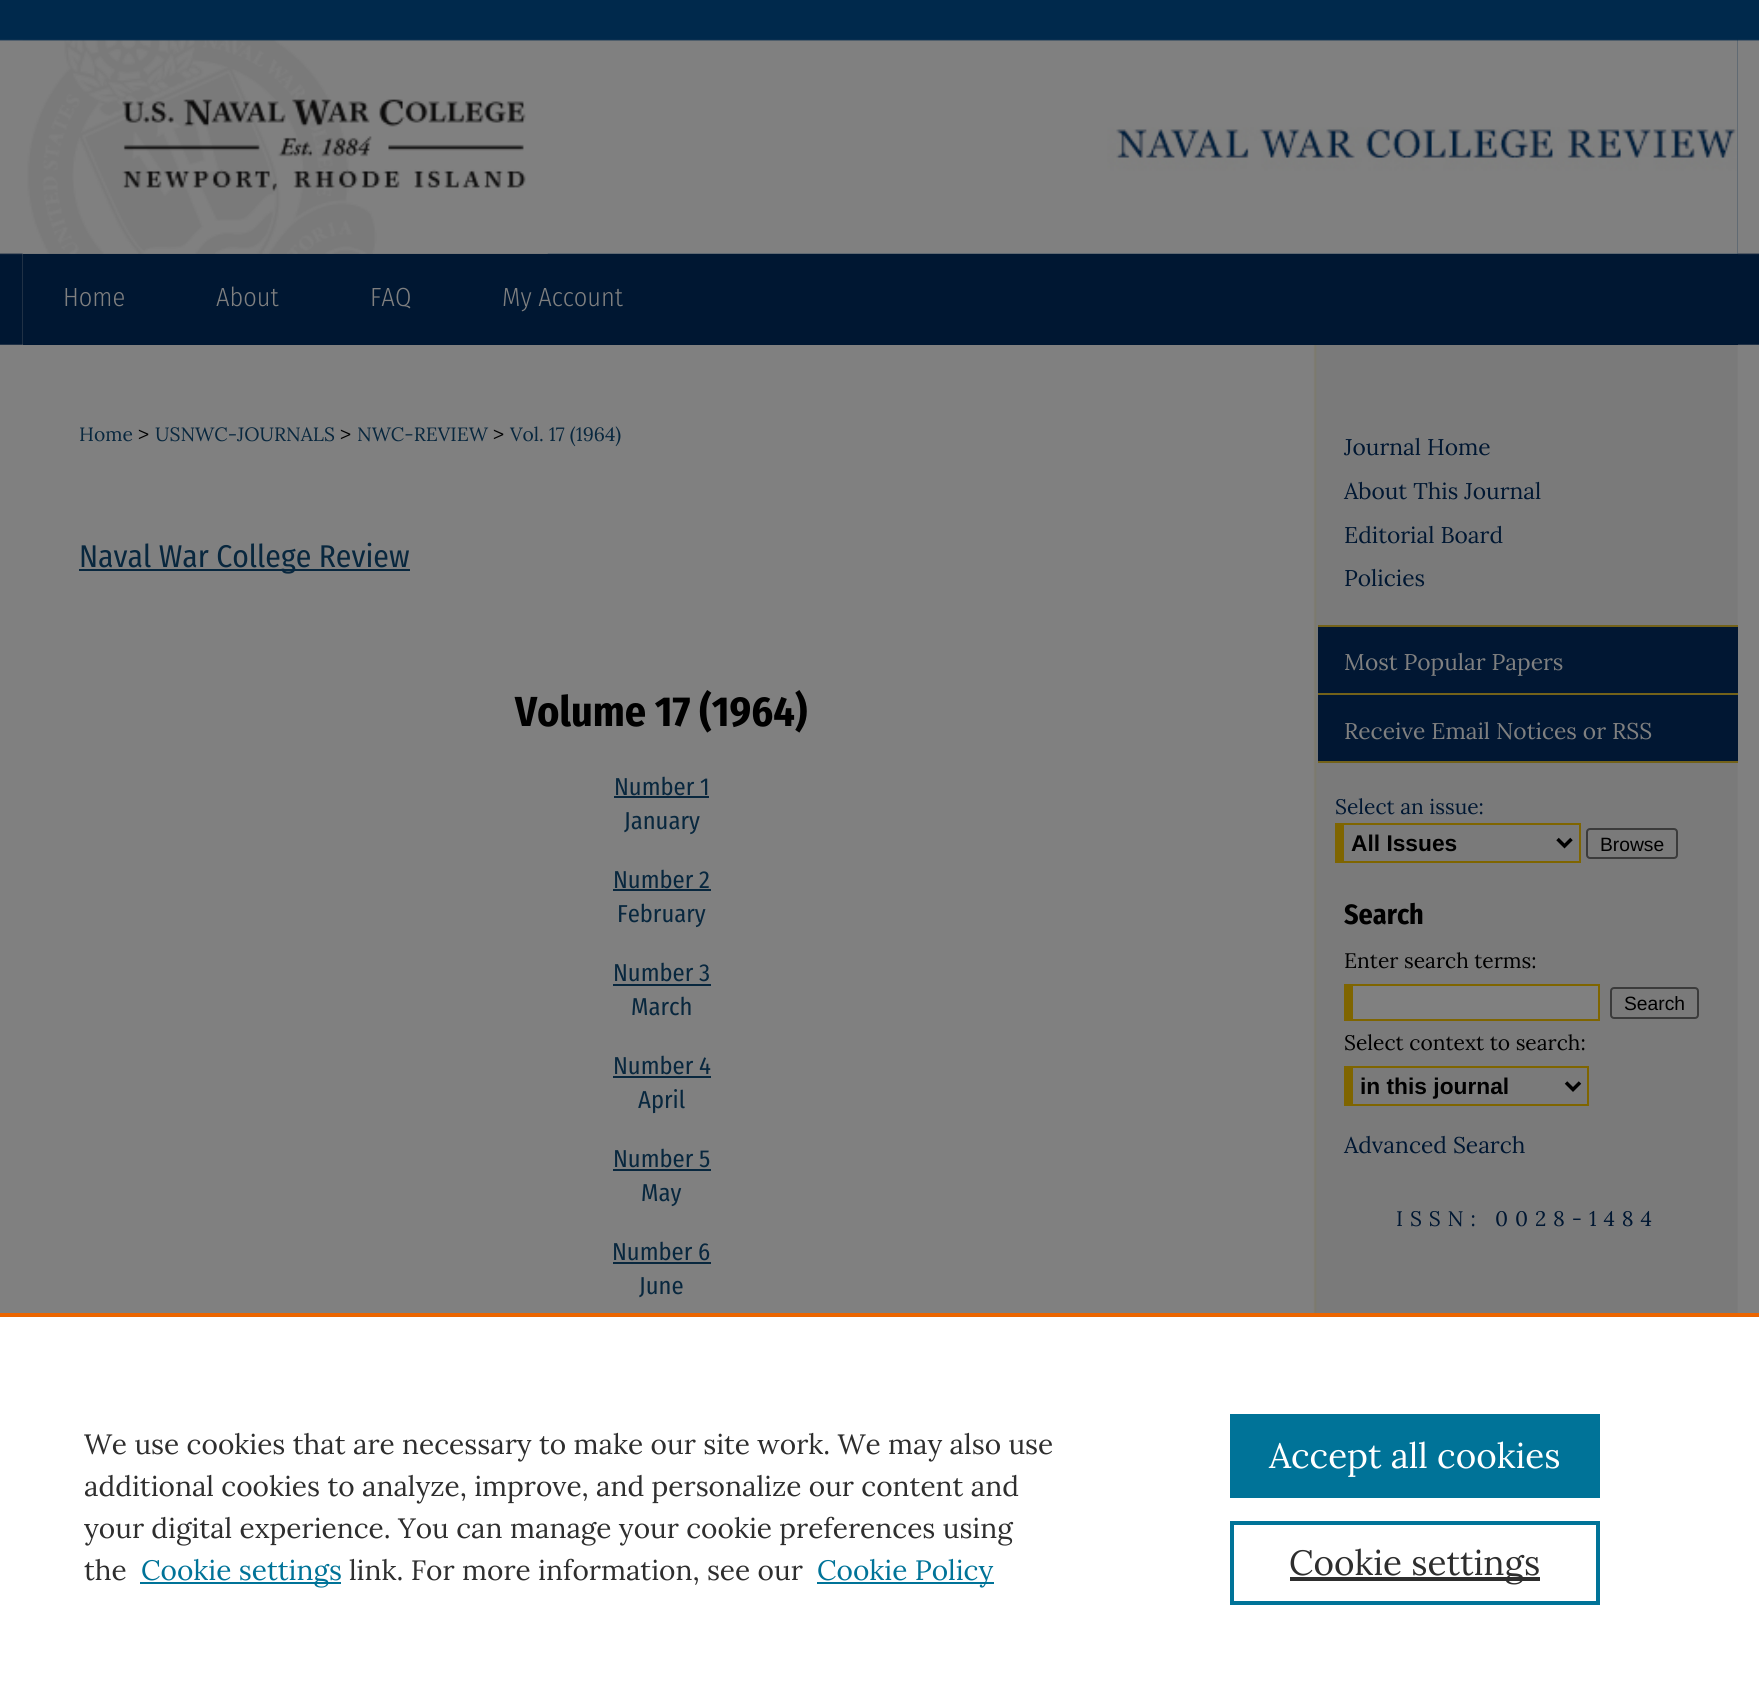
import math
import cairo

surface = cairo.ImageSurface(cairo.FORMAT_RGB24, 1759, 1697)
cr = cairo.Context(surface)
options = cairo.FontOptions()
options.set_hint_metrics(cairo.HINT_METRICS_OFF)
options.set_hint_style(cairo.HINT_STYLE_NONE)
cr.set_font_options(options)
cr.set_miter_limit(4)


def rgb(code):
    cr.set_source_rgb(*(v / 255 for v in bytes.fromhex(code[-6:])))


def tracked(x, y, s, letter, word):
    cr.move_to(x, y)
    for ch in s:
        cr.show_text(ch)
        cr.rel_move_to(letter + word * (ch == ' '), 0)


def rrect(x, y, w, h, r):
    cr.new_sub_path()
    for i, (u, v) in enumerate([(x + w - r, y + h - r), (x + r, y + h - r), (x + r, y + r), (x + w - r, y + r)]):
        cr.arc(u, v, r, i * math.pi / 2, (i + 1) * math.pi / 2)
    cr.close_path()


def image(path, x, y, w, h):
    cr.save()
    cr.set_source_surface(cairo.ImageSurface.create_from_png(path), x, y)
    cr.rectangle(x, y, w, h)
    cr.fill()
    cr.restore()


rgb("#808080")
cr.paint()
image("img/1.png", 0, 0, 1759, 345)
image("img/4.png", 22, 253, 1716, 1060)
rgb("#00294d")
cr.rectangle(23, 39, 1715, 215)
cr.fill()
image("img/2.png", 22, 39, 1716, 215)
image("img/3.png", 22, 253, 526, 1)
for x, y, w, h, color in [
    (23, 254, 1715, 91, "#001732"),
    (79, 569, 331, 2, "#08273e"),
    (614, 796, 95, 2, "#08273e"),
    (613, 889, 98, 2, "#08273e"),
    (613, 984, 98, 2, "#08273e"),
    (613, 1076, 98, 2, "#08273e"),
    (613, 1169, 98, 2, "#08273e"),
    (613, 1262, 98, 2, "#08273e"),
    (1318, 627, 420, 66, "#011733"),
    (1318, 625, 420, 2, "#73621a"),
    (1318, 693, 420, 2, "#73621a"),
    (1318, 695, 420, 66, "#011733"),
    (1318, 761, 420, 2, "#73621a"),
    (1344, 823, 236, 2, "#7f6500"),
    (1579, 823, 2, 40, "#7f6500"),
    (1344, 861, 236, 2, "#7f6500"),
    (1335, 823, 9, 40, "#7f6500"),
]:
    rgb(color)
    cr.rectangle(x, y, w, h)
    cr.fill()
cr.new_path()
cr.move_to(1557.5, 839)
cr.line_to(1564.5, 846)
cr.line_to(1571.5, 839)
rgb("#000000")
cr.set_line_width(3.5)
cr.stroke()
rrect(1587, 829, 90, 29, 3)
rgb("#3b3b3b")
cr.set_line_width(2)
cr.stroke()
for x, y, w, h, color in [
    (1353, 986, 245, 33, "#808080"),
    (1353, 984, 247, 2, "#7f6500"),
    (1598, 984, 2, 36, "#7f6500"),
    (1344, 1019, 256, 2, "#7f6500"),
    (1344, 984, 9, 35, "#7f6500"),
]:
    rgb(color)
    cr.rectangle(x, y, w, h)
    cr.fill()
rrect(1611, 988, 87, 30, 3)
rgb("#3b3b3b")
cr.stroke()
for x, y, w, h, color in [
    (1353, 1066, 236, 2, "#7f6500"),
    (1587, 1066, 2, 40, "#7f6500"),
    (1353, 1104, 236, 2, "#7f6500"),
    (1344, 1066, 9, 40, "#7f6500"),
]:
    rgb(color)
    cr.rectangle(x, y, w, h)
    cr.fill()
cr.new_path()
cr.move_to(1566, 1082.5)
cr.line_to(1573, 1089.5)
cr.line_to(1580, 1082.5)
rgb("#000000")
cr.set_line_width(3.5)
cr.stroke()
for x, y, w, h, color in [
    (0, 1317, 1759, 380, "#ffffff"),
    (0, 1313, 1759, 4, "#eb6500"),
    (140, 1582, 201, 2, "#007398"),
    (817, 1582, 177, 2, "#007398"),
    (1230, 1414, 370, 84, "#007398"),
]:
    rgb(color)
    cr.rectangle(x, y, w, h)
    cr.fill()
cr.rectangle(1232, 1523, 366, 80)
cr.set_line_width(4)
cr.stroke()
rgb("#2e2e2e")
cr.rectangle(1290, 1577, 250, 4)
cr.fill()
cr.select_font_face("Fira Sans Condensed Light")
cr.set_font_size(26.25)
rgb("#808080")
for x, y, s in [
    (63, 306, "Home"),
    (216, 306, "About"),
    (370, 306, "FAQ"),
    (502, 306, "My Account"),
]:
    cr.move_to(x, y)
    cr.show_text(s)
cr.select_font_face("Lora")
cr.set_font_size(19.25)
rgb("#08273e")
cr.move_to(79, 441)
cr.show_text("Home")
cr.set_font_size(21)
rgb("#000000")
cr.move_to(138, 441)
cr.show_text(">")
cr.set_font_size(19.25)
rgb("#08273e")
cr.move_to(155, 441)
cr.show_text("USNWC-JOURNALS")
cr.set_font_size(21)
rgb("#000000")
cr.move_to(340, 441)
cr.show_text(">")
cr.set_font_size(19.25)
rgb("#08273e")
cr.move_to(357, 441)
cr.show_text("NWC-REVIEW")
cr.set_font_size(21)
rgb("#000000")
cr.move_to(493, 441)
cr.show_text(">")
cr.set_font_size(19.25)
rgb("#08273e")
cr.move_to(510, 441)
cr.show_text("Vol. 17 (1964)")
cr.select_font_face("Fira Sans Condensed")
cr.set_font_size(31.5)
cr.move_to(79, 567)
cr.show_text("Naval War College Review")
cr.select_font_face("Fira Sans Condensed", cairo.FONT_SLANT_NORMAL, cairo.FONT_WEIGHT_BOLD)
cr.set_font_size(42)
rgb("#000000")
cr.move_to(515, 726)
cr.show_text("Volume 17 (1964)")
cr.select_font_face("Fira Sans Condensed")
cr.set_font_size(24.5)
rgb("#08273e")
for x, y, s in [
    (614, 795, "Number 1"),
    (624, 829, "January"),
    (613, 888, "Number 2"),
    (617, 922, "February"),
    (613, 981, "Number 3"),
    (631, 1015, "March"),
    (613, 1074, "Number 4"),
    (638, 1108, "April"),
    (613, 1167, "Number 5"),
    (641, 1201, "May"),
    (612, 1260, "Number 6"),
    (639, 1294, "June"),
]:
    cr.move_to(x, y)
    cr.show_text(s)
cr.select_font_face("Lora")
cr.set_font_size(22.75)
rgb("#001732")
for x, y, s in [
    (1344, 455, "Journal Home"),
    (1344, 499, "About This Journal"),
    (1344, 543, "Editorial Board"),
    (1344, 586, "Policies"),
]:
    cr.move_to(x, y)
    cr.show_text(s)
rgb("#808080")
cr.move_to(1344, 670)
cr.show_text("Most Popular Papers")
cr.move_to(1344, 739)
cr.show_text("Receive Email Notices or RSS")
cr.set_font_size(21)
rgb("#001732")
cr.move_to(1335, 814)
cr.show_text("Select an issue:")
cr.select_font_face("Liberation Sans", cairo.FONT_SLANT_NORMAL, cairo.FONT_WEIGHT_BOLD)
cr.set_font_size(22.75)
rgb("#000000")
cr.move_to(1351, 851)
cr.show_text("All Issues")
cr.select_font_face("Liberation Sans")
cr.set_font_size(19.25)
cr.move_to(1600, 851)
cr.show_text("Browse")
cr.select_font_face("Fira Sans Condensed", cairo.FONT_SLANT_NORMAL, cairo.FONT_WEIGHT_BOLD)
cr.set_font_size(28)
cr.move_to(1344, 924)
cr.show_text("Search")
cr.select_font_face("Lora")
cr.set_font_size(21)
cr.move_to(1344, 968)
cr.show_text("Enter search terms:")
cr.select_font_face("Liberation Sans")
cr.set_font_size(19.25)
cr.move_to(1624, 1010)
cr.show_text("Search")
cr.select_font_face("Lora")
cr.set_font_size(21)
cr.move_to(1344, 1050)
cr.show_text("Select context to search:")
cr.select_font_face("Liberation Sans", cairo.FONT_SLANT_NORMAL, cairo.FONT_WEIGHT_BOLD)
cr.set_font_size(22.75)
cr.move_to(1360, 1094)
cr.show_text("in this journal")
cr.select_font_face("Lora")
rgb("#001732")
cr.move_to(1344, 1153)
cr.show_text("Advanced Search")
cr.set_font_size(21)
tracked(1396, 1226, "ISSN: 0028-1484", 6.9, 0)
cr.set_font_size(28)
rgb("#2e2e2e")
for x, y, s in [
    (84, 1454, "We use cookies that are necessary to make our site work. We may also use"),
    (84, 1496, "additional cookies to analyze, improve, and personalize our content and"),
    (84, 1538, "your digital experience. You can manage your cookie preferences using"),
    (84, 1580, "the"),
]:
    cr.move_to(x, y)
    cr.show_text(s)
rgb("#007398")
cr.move_to(141, 1580)
cr.show_text("Cookie settings")
rgb("#2e2e2e")
cr.move_to(349, 1580)
cr.show_text("link. For more information, see our")
rgb("#007398")
cr.move_to(817, 1580)
cr.show_text("Cookie Policy")
cr.set_font_size(35)
rgb("#ffffff")
cr.move_to(1269, 1468)
cr.show_text("Accept all cookies")
rgb("#2e2e2e")
cr.move_to(1289, 1575)
cr.show_text("Cookie settings")
surface.write_to_png("page.png")
